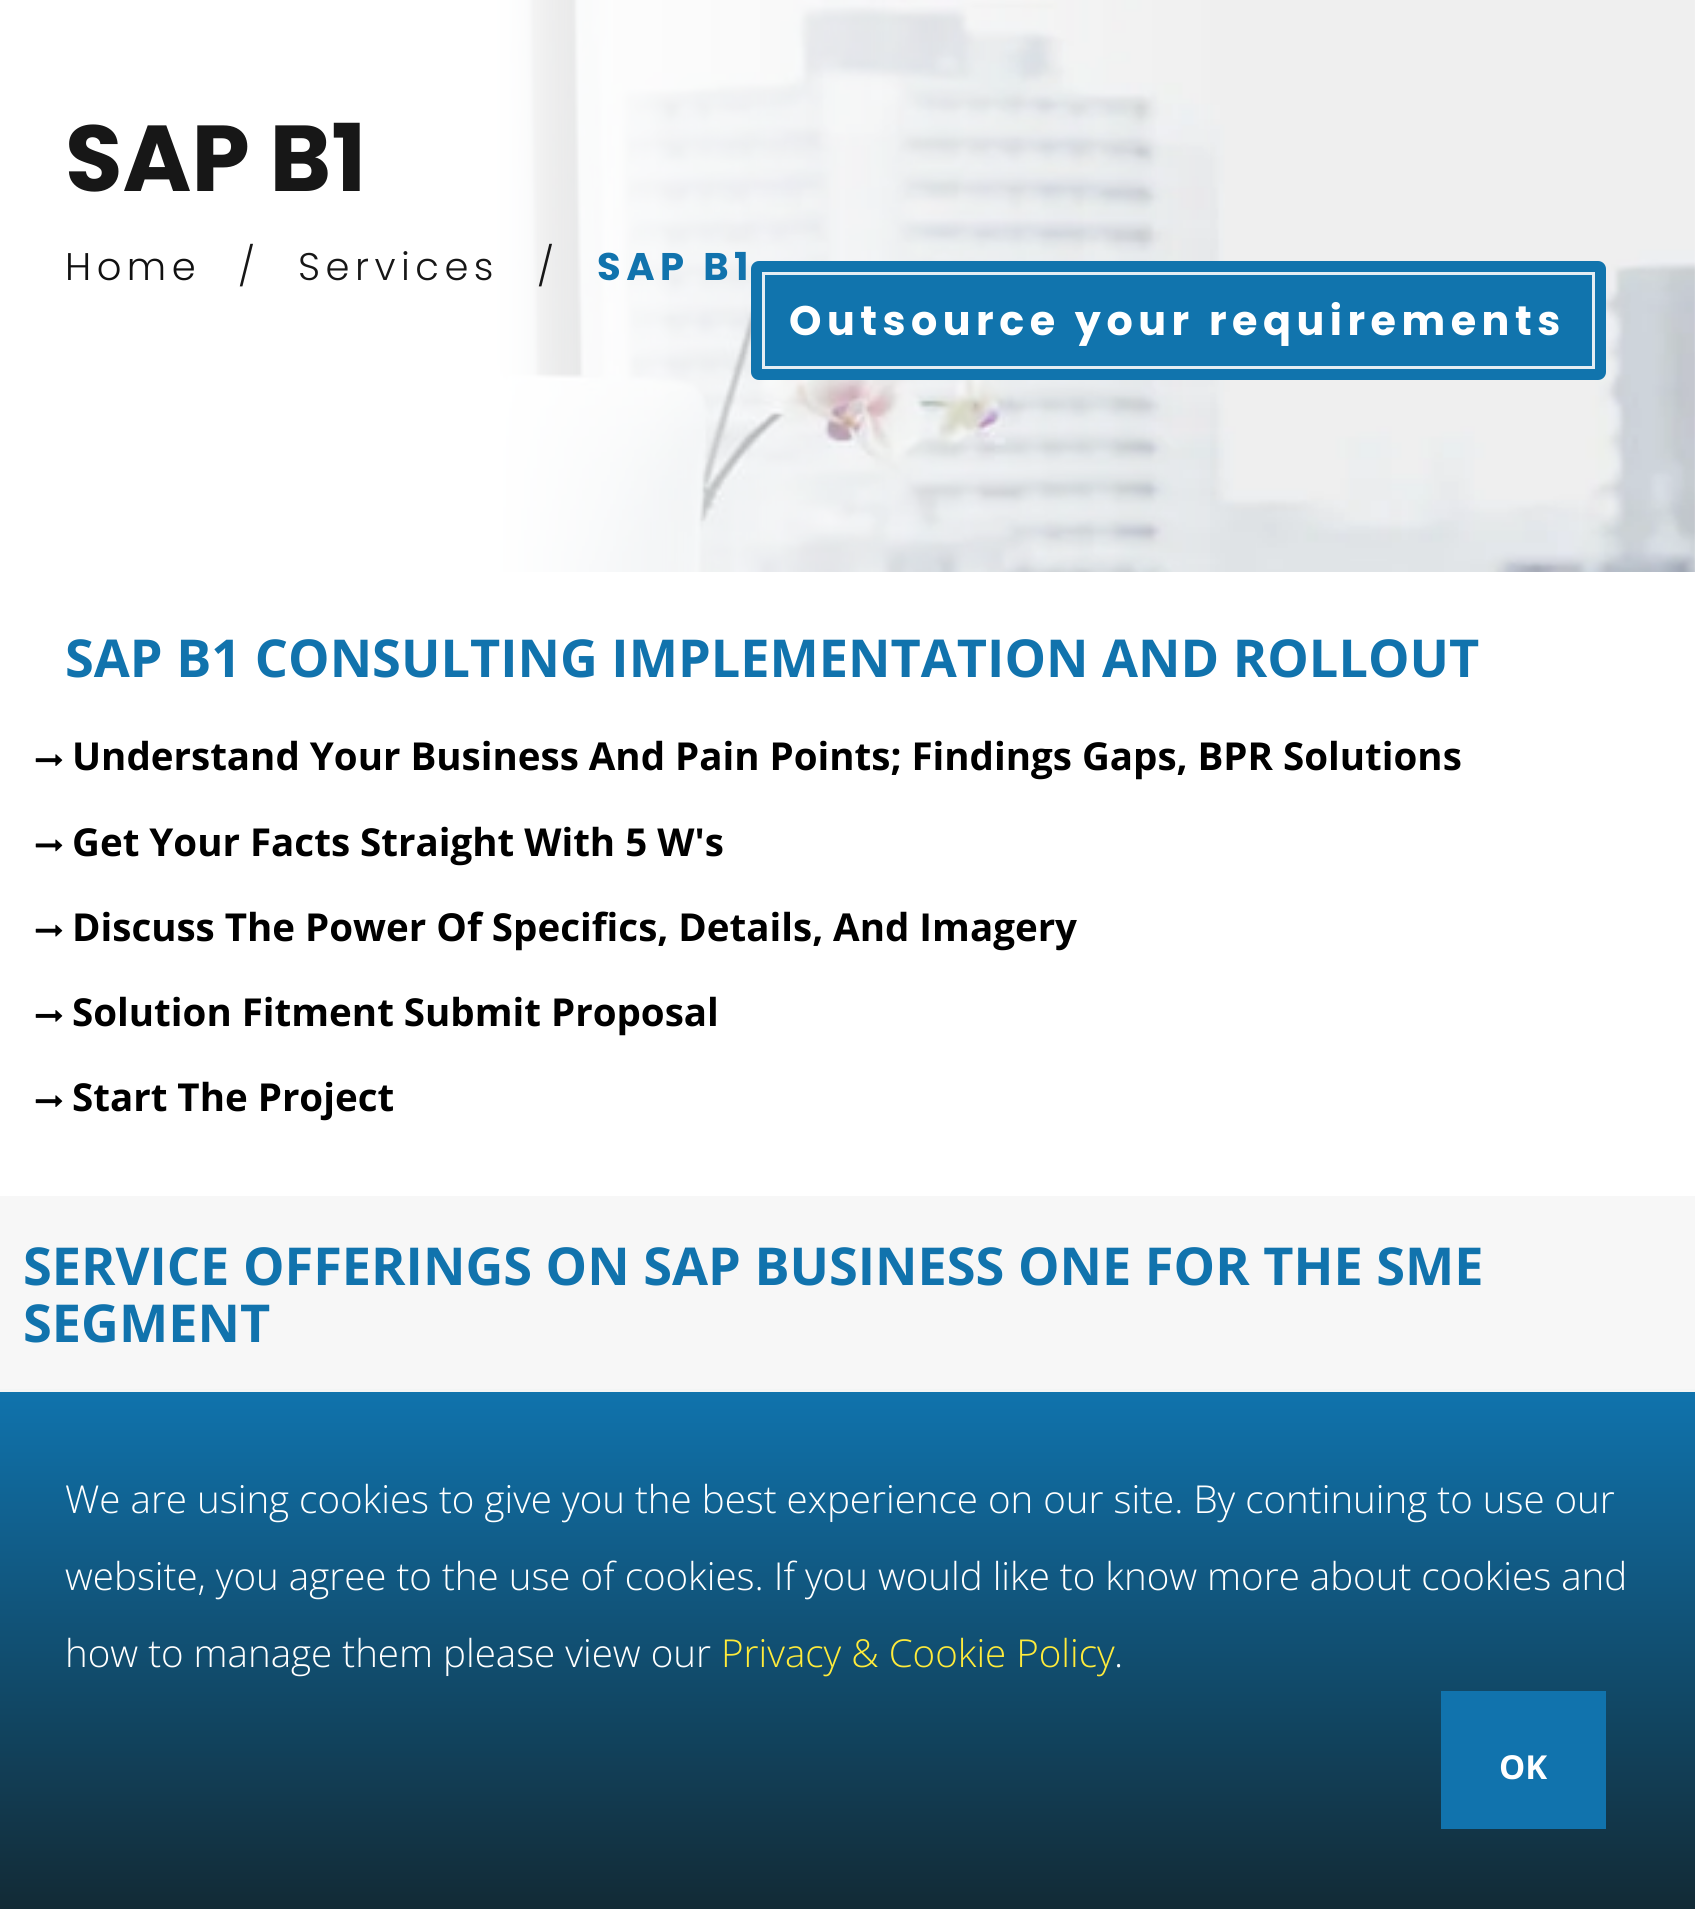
import math
import cairo

surface = cairo.ImageSurface(cairo.FORMAT_RGB24, 1695, 1909)
cr = cairo.Context(surface)
options = cairo.FontOptions()
options.set_hint_metrics(cairo.HINT_METRICS_OFF)
options.set_hint_style(cairo.HINT_STYLE_NONE)
cr.set_font_options(options)
cr.set_miter_limit(4)


def rgb(code):
    cr.set_source_rgb(*(v / 255 for v in bytes.fromhex(code[-6:])))


def tracked(x, y, s, letter, word):
    cr.move_to(x, y)
    for ch in s:
        cr.show_text(ch)
        cr.rel_move_to(letter + word * (ch == ' '), 0)


def rrect(x, y, w, h, r):
    cr.new_sub_path()
    for i, (u, v) in enumerate([(x + w - r, y + h - r), (x + r, y + h - r), (x + r, y + r), (x + w - r, y + r)]):
        cr.arc(u, v, r, i * math.pi / 2, (i + 1) * math.pi / 2)
    cr.close_path()


def image(path, x, y, w, h):
    cr.save()
    cr.set_source_surface(cairo.ImageSurface.create_from_png(path), x, y)
    cr.rectangle(x, y, w, h)
    cr.fill()
    cr.restore()


rgb("#ffffff")
cr.paint()
image("img/1.png", 497, 0, 1198, 572)
gradient = cairo.LinearGradient(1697, 243, 0, 243)
gradient.add_color_stop_rgba(0, 0, 0, 0, 0)
gradient.add_color_stop_rgba(0.25, 1, 1, 1, 0)
gradient.add_color_stop_rgba(0.71, 1, 1, 1, 1)
gradient.add_color_stop_rgba(1, 1, 1, 1, 1)
cr.set_source(gradient)
cr.rectangle(497, 0, 713, 572)
cr.fill()
rgb("#1174ad")
rrect(751, 261, 855, 119, 8)
cr.fill()
cr.rectangle(763.5, 273.5, 830, 94)
rgb("#e4edf3")
cr.set_line_width(3)
cr.stroke()
image("img/2.png", 35, 754, 28, 12)
image("img/3.png", 35, 839, 28, 13)
image("img/4.png", 35, 924, 28, 13)
image("img/5.png", 35, 1010, 28, 12)
image("img/2.png", 35, 1095, 28, 12)
rgb("#f7f7f7")
cr.rectangle(0, 1196, 1695, 193)
cr.fill()
gradient = cairo.LinearGradient(848, 1391, 848, 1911)
gradient.add_color_stop_rgba(0, 0.063, 0.451, 0.678, 1)
gradient.add_color_stop_rgba(1, 0.071, 0.165, 0.208, 1)
cr.set_source(gradient)
cr.rectangle(0, 1392, 1695, 517)
cr.fill()
rgb("#f3f5f5")
cr.rectangle(0, 1389, 1695, 3)
cr.fill()
rgb("#1173ad")
cr.rectangle(1441, 1691, 165, 138)
cr.fill()
cr.select_font_face("Poppins", cairo.FONT_SLANT_NORMAL, cairo.FONT_WEIGHT_BOLD)
cr.set_font_size(93.5)
rgb("#171717")
cr.move_to(65, 191)
cr.show_text("SAP B1")
cr.select_font_face("Poppins Light")
cr.set_font_size(38.5)
rgb("#111111")
tracked(65, 280, "Home", 5.5, 0)
rgb("#171717")
for x, y, s in [
    (238, 280, "/"),
    (298, 280, "Services"),
    (537, 280, "/"),
]:
    tracked(x, y, s, 5.5, 0)
cr.select_font_face("Poppins", cairo.FONT_SLANT_NORMAL, cairo.FONT_WEIGHT_BOLD)
rgb("#1173ad")
tracked(597, 280, "SAP B1", 5.5, 0)
cr.set_font_size(41.25)
rgb("#ffffff")
tracked(789, 335, "Outsource your requirements", 5.5, 0)
cr.select_font_face("Open Sans", cairo.FONT_SLANT_NORMAL, cairo.FONT_WEIGHT_BOLD)
cr.set_font_size(52.25)
rgb("#1173ad")
cr.move_to(65, 677)
cr.show_text("SAP B1 CONSULTING IMPLEMENTATION AND ROLLOUT")
cr.set_font_size(38.5)
rgb("#000000")
for x, y, s in [
    (72, 770, "Understand Your Business And Pain Points; Findings Gaps, BPR Solutions"),
    (72, 856, "Get Your Facts Straight With 5 W's"),
    (72, 941, "Discuss The Power Of Specifics, Details, And Imagery"),
    (72, 1026, "Solution Fitment Submit Proposal"),
    (72, 1111, "Start The Project"),
]:
    cr.move_to(x, y)
    cr.show_text(s)
cr.set_font_size(52.25)
rgb("#1173ad")
cr.move_to(23, 1285)
cr.show_text("SERVICE OFFERINGS ON SAP BUSINESS ONE FOR THE SME")
cr.move_to(23, 1342)
cr.show_text("SEGMENT")
cr.select_font_face("Open Sans Light")
cr.set_font_size(38.5)
rgb("#ffffff")
for x, y, s in [
    (65, 1513, "We are using cookies to give you the best experience on our site. By continuing to use our"),
    (65, 1590, "website, you agree to the use of cookies. If you would like to know more about cookies and"),
    (65, 1667, "how to manage them please view our"),
]:
    cr.move_to(x, y)
    cr.show_text(s)
rgb("#ffeb3b")
cr.move_to(721, 1667)
cr.show_text("Privacy & Cookie Policy")
rgb("#ffffff")
cr.move_to(1114, 1667)
cr.show_text(".")
cr.select_font_face("Open Sans", cairo.FONT_SLANT_NORMAL, cairo.FONT_WEIGHT_BOLD)
cr.set_font_size(33)
cr.move_to(1499, 1779)
cr.show_text("OK")
surface.write_to_png("page.png")
